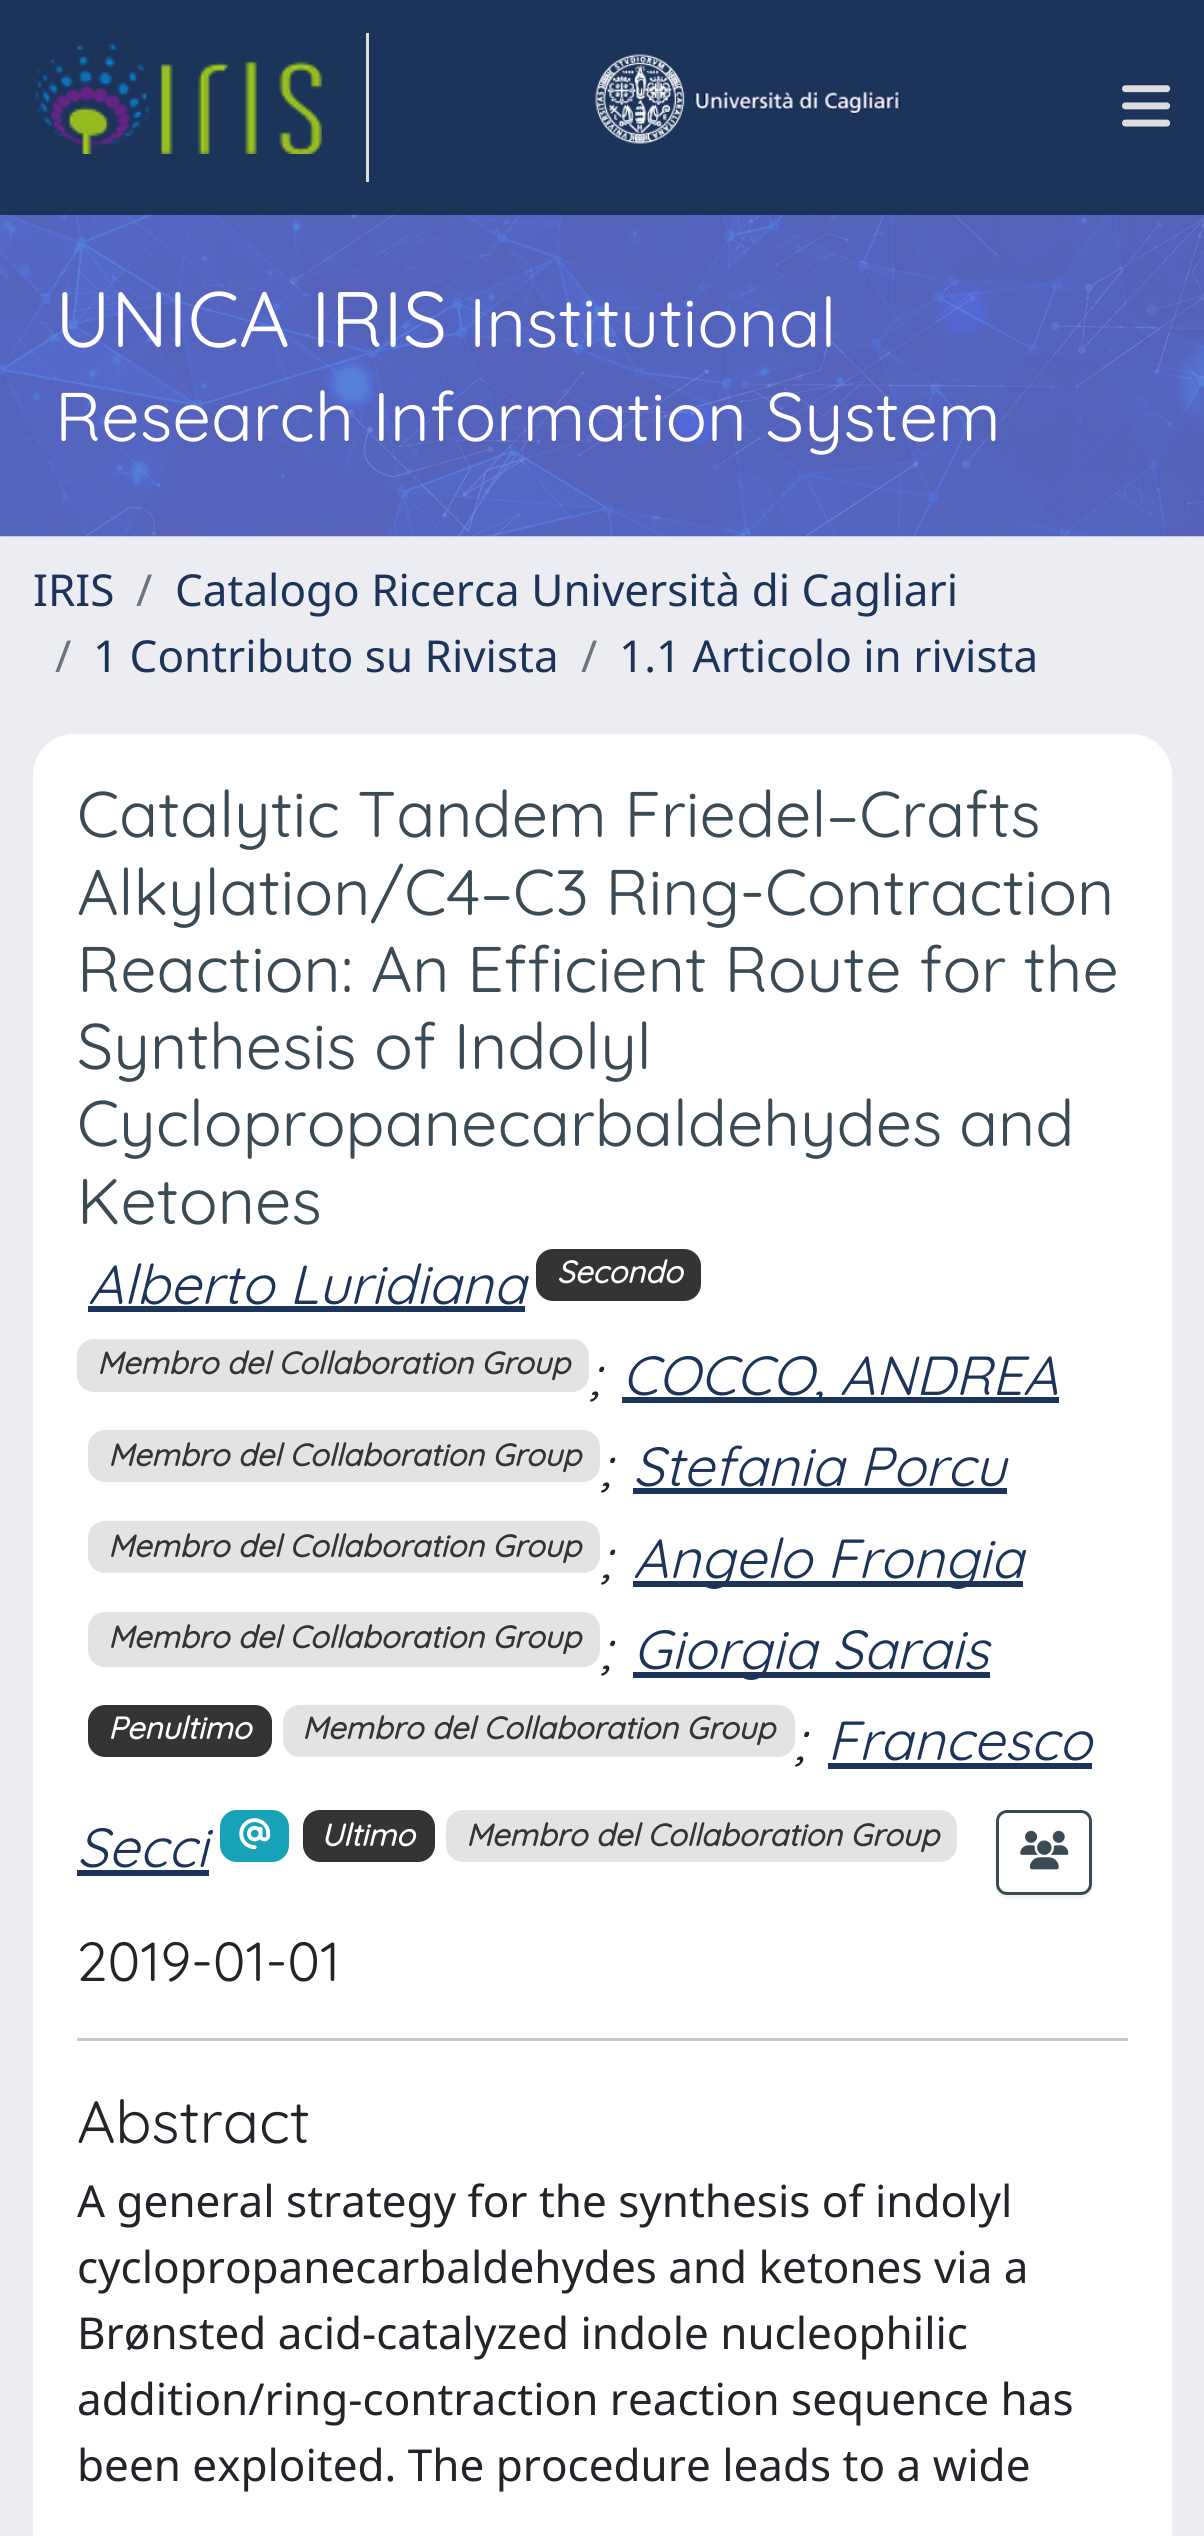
import math
import cairo

surface = cairo.ImageSurface(cairo.FORMAT_RGB24, 1204, 2536)
cr = cairo.Context(surface)
options = cairo.FontOptions()
options.set_hint_metrics(cairo.HINT_METRICS_OFF)
options.set_hint_style(cairo.HINT_STYLE_NONE)
cr.set_font_options(options)
cr.set_miter_limit(4)


def rgb(code):
    cr.set_source_rgb(*(v / 255 for v in bytes.fromhex(code[-6:])))


def tracked(x, y, s, letter, word):
    cr.move_to(x, y)
    for ch in s:
        cr.show_text(ch)
        cr.rel_move_to(letter + word * (ch == ' '), 0)


def rrect(x, y, w, h, r):
    cr.new_sub_path()
    for i, (u, v) in enumerate([(x + w - r, y + h - r), (x + r, y + h - r), (x + r, y + r), (x + w - r, y + r)]):
        cr.arc(u, v, r, i * math.pi / 2, (i + 1) * math.pi / 2)
    cr.close_path()


def soft_shadow(x, y, w, h, r, blur, alpha):
    cr.push_group_with_content(cairo.CONTENT_ALPHA)
    cr.set_operator(cairo.OPERATOR_SOURCE)
    for i in range(15, -16, -2):
        e = blur * i / 6
        if min(w, h) + 2 * e > 0:
            cr.set_source_rgba(0, 0, 0, alpha * math.erfc((i - 1) / 8.5) / 2)
            rrect(x - e, y - e, w + 2 * e, h + 2 * e, max(0, min(r + e + blur * .6, min(w, h) / 2 + e)))
            cr.fill()
    cr.mask(cr.pop_group())


def image(path, x, y, w, h):
    cr.save()
    cr.set_source_surface(cairo.ImageSurface.create_from_png(path), x, y)
    cr.rectangle(x, y, w, h)
    cr.fill()
    cr.restore()


rgb("#ecedf2")
cr.paint()
rgb("#1c345a")
cr.rectangle(0, 0, 1204, 215)
cr.fill()
rgb("#dddddd")
cr.rectangle(366, 33, 3, 149)
cr.fill()
image("img/1.png", 33, 44, 289, 110)
image("img/2.png", 595, 54, 305, 90)
image("img/3.png", 1122, 85, 49, 42)
image("img/4.png", 0, 215, 1204, 322)
rgb("#ffffff")
rrect(33, 734, 1139, 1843, 41)
cr.fill()
rgb("#343434")
rrect(536, 1249, 165, 52, 17)
cr.fill()
rgb("#e3e3e5")
rrect(77, 1339, 512, 53, 17)
cr.fill()
rgb("#1c345a")
cr.rectangle(88, 1306, 437, 6)
cr.fill()
cr.rectangle(622, 1397, 437, 6)
cr.fill()
rgb("#e3e3e5")
rrect(88, 1430, 512, 52, 17)
cr.fill()
rgb("#1c345a")
cr.rectangle(633, 1488, 374, 6)
cr.fill()
rgb("#e3e3e5")
rrect(88, 1521, 512, 52, 17)
cr.fill()
rgb("#1c345a")
cr.rectangle(633, 1581, 390, 6)
cr.fill()
rgb("#e3e3e5")
rrect(88, 1612, 512, 55, 17)
cr.fill()
rgb("#1c345a")
cr.rectangle(633, 1672, 357, 6)
cr.fill()
rgb("#343434")
rrect(88, 1705, 184, 52, 17)
cr.fill()
rgb("#e3e3e5")
rrect(283, 1705, 512, 52, 17)
cr.fill()
rgb("#1c345a")
cr.rectangle(828, 1763, 264, 6)
cr.fill()
cr.rectangle(77, 1870, 132, 6)
cr.fill()
rgb("#17a2b8")
rrect(220, 1810, 69, 52, 17)
cr.fill()
image("img/5.png", 239, 1818, 32, 32)
rgb("#343434")
rrect(303, 1810, 132, 52, 17)
cr.fill()
rgb("#e3e3e5")
rrect(446, 1810, 511, 52, 17)
cr.fill()
cr.save()
cr.set_fill_rule(cairo.FILL_RULE_EVEN_ODD)
cr.new_path()
cr.move_to(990, 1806)
cr.line_to(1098, 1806)
cr.line_to(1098, 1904)
cr.line_to(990, 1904)
cr.close_path()
cr.move_to(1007, 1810)
cr.line_to(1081, 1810)
cr.curve_to(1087, 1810, 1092, 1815, 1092, 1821)
cr.line_to(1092, 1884)
cr.curve_to(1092, 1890, 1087, 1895, 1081, 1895)
cr.line_to(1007, 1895)
cr.curve_to(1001, 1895, 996, 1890, 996, 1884)
cr.line_to(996, 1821)
cr.curve_to(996, 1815, 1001, 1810, 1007, 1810)
cr.close_path()
cr.clip()
rgb("#000000")
soft_shadow(996, 1812, 96, 86, 11, 1.5, 0.07)
cr.restore()
rrect(997.5, 1811.5, 93, 82, 9.5)
rgb("#3a4b55")
cr.set_line_width(3)
cr.stroke()
image("img/6.png", 1020, 1830, 49, 40)
rgb("#c8c9ca")
cr.rectangle(77, 2038, 1051, 3)
cr.fill()
cr.select_font_face("Quicksand")
cr.set_font_size(78.5)
rgb("#ffffff")
cr.move_to(55, 347)
cr.show_text("UNICA IRIS")
cr.set_font_size(68.75)
cr.move_to(469, 347)
cr.show_text("Institutional")
cr.move_to(55, 441)
cr.show_text("Research Information System")
cr.select_font_face("Noto Sans")
cr.set_font_size(44)
rgb("#1c345a")
cr.move_to(33, 606)
cr.show_text("IRIS")
rgb("#6c757d")
cr.move_to(136, 606)
cr.show_text("/")
rgb("#1c345a")
cr.move_to(175, 606)
cr.show_text("Catalogo Ricerca Università di Cagliari")
rgb("#6c757d")
cr.move_to(55, 672)
cr.show_text("/")
rgb("#1c345a")
cr.move_to(93, 672)
cr.show_text("1 Contributo su Rivista")
rgb("#6c757d")
cr.move_to(581, 672)
cr.show_text("/")
rgb("#1c345a")
cr.move_to(619, 672)
cr.show_text("1.1 Articolo in rivista")
cr.select_font_face("Quicksand")
cr.set_font_size(64.4)
rgb("#3a4b55")
cr.move_to(77, 837)
cr.show_text("Catalytic Tandem Friedel–Crafts")
tracked(77, 915, "Alkylation/C4–C3 Ring-Contraction", 0, -1)
cr.move_to(77, 992)
cr.show_text("Reaction: An Efficient Route for the")
cr.move_to(77, 1069)
cr.show_text("Synthesis of Indolyl")
tracked(77, 1146, "Cyclopropanecarbaldehydes and", 0, -1)
cr.move_to(77, 1224)
cr.show_text("Ketones")
cr.select_font_face("Quicksand", cairo.FONT_SLANT_ITALIC, cairo.FONT_WEIGHT_BOLD)
cr.set_font_size(31)
rgb("#ffffff")
cr.move_to(557, 1283)
cr.show_text("Secondo")
rgb("#343434")
cr.move_to(97, 1374)
cr.show_text("Membro del Collaboration Group")
cr.select_font_face("Quicksand", cairo.FONT_SLANT_ITALIC)
cr.set_font_size(55)
rgb("#1c345a")
cr.move_to(88, 1304)
cr.show_text("Alberto Luridiana")
rgb("#212529")
cr.move_to(589, 1395)
cr.show_text(";")
rgb("#1c345a")
cr.move_to(622, 1395)
cr.show_text("COCCO, ANDREA")
cr.select_font_face("Quicksand", cairo.FONT_SLANT_ITALIC, cairo.FONT_WEIGHT_BOLD)
cr.set_font_size(31)
rgb("#343434")
cr.move_to(108, 1466)
cr.show_text("Membro del Collaboration Group")
cr.select_font_face("Quicksand", cairo.FONT_SLANT_ITALIC)
cr.set_font_size(55)
rgb("#212529")
cr.move_to(600, 1486)
cr.show_text(";")
rgb("#1c345a")
cr.move_to(633, 1486)
cr.show_text("Stefania Porcu")
cr.select_font_face("Quicksand", cairo.FONT_SLANT_ITALIC, cairo.FONT_WEIGHT_BOLD)
cr.set_font_size(31)
rgb("#343434")
cr.move_to(108, 1557)
cr.show_text("Membro del Collaboration Group")
cr.select_font_face("Quicksand", cairo.FONT_SLANT_ITALIC)
cr.set_font_size(55)
rgb("#212529")
cr.move_to(600, 1578)
cr.show_text(";")
rgb("#1c345a")
cr.move_to(633, 1578)
cr.show_text("Angelo Frongia")
cr.select_font_face("Quicksand", cairo.FONT_SLANT_ITALIC, cairo.FONT_WEIGHT_BOLD)
cr.set_font_size(31)
rgb("#343434")
cr.move_to(108, 1648)
cr.show_text("Membro del Collaboration Group")
cr.select_font_face("Quicksand", cairo.FONT_SLANT_ITALIC)
cr.set_font_size(55)
rgb("#212529")
cr.move_to(600, 1669)
cr.show_text(";")
rgb("#1c345a")
cr.move_to(633, 1669)
cr.show_text("Giorgia Sarais")
cr.select_font_face("Quicksand", cairo.FONT_SLANT_ITALIC, cairo.FONT_WEIGHT_BOLD)
cr.set_font_size(31)
rgb("#ffffff")
cr.move_to(108, 1739)
cr.show_text("Penultimo")
rgb("#343434")
cr.move_to(302, 1739)
cr.show_text("Membro del Collaboration Group")
cr.select_font_face("Quicksand", cairo.FONT_SLANT_ITALIC)
cr.set_font_size(55)
rgb("#212529")
cr.move_to(794, 1760)
cr.show_text(";")
rgb("#1c345a")
cr.move_to(827, 1760)
cr.show_text("Francesco")
cr.move_to(77, 1867)
cr.show_text("Secci")
cr.select_font_face("Quicksand", cairo.FONT_SLANT_ITALIC, cairo.FONT_WEIGHT_BOLD)
cr.set_font_size(31)
rgb("#ffffff")
cr.move_to(321, 1846)
cr.show_text("Ultimo")
rgb("#343434")
cr.move_to(466, 1846)
cr.show_text("Membro del Collaboration Group")
cr.select_font_face("Quicksand")
cr.set_font_size(55)
rgb("#212529")
cr.move_to(77, 1981)
cr.show_text("2019-01-01")
cr.set_font_size(59.5)
cr.move_to(77, 2143)
cr.show_text("Abstract")
cr.select_font_face("Noto Sans")
cr.set_font_size(44)
for x, y, s in [
    (77, 2217, "A general strategy for the synthesis of indolyl"),
    (77, 2283, "cyclopropanecarbaldehydes and ketones via a"),
    (77, 2349, "Brønsted acid-catalyzed indole nucleophilic"),
    (77, 2415, "addition/ring-contraction reaction sequence has"),
    (77, 2481, "been exploited. The procedure leads to a wide"),
]:
    cr.move_to(x, y)
    cr.show_text(s)
surface.write_to_png("page.png")
